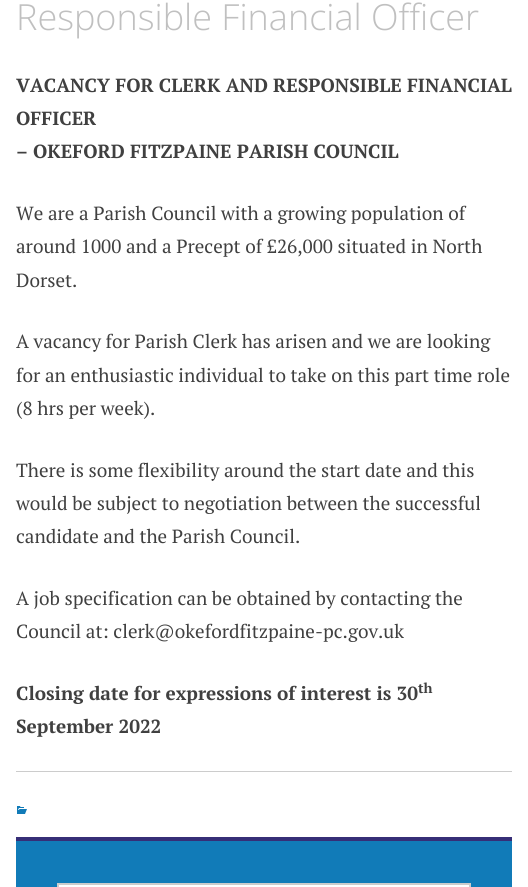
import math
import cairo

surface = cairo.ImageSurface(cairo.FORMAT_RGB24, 528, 887)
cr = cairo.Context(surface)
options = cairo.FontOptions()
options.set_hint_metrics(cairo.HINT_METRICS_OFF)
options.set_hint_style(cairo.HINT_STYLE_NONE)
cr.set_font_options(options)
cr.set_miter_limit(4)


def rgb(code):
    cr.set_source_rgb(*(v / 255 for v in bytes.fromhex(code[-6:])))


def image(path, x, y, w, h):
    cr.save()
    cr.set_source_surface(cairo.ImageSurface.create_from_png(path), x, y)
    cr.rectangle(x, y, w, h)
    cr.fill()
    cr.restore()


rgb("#ffffff")
cr.paint()
rgb("#cccccc")
cr.rectangle(16, 771, 496, 1)
cr.fill()
image("img/1.png", 17, 806, 10, 8)
rgb("#117bb8")
cr.rectangle(16, 841, 496, 46)
cr.fill()
rgb("#362e77")
cr.rectangle(16, 837, 496, 4)
cr.fill()
rgb("#ffffff")
cr.rectangle(58, 884, 412, 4)
cr.fill_preserve()
rgb("#cccccc")
cr.stroke()
cr.select_font_face("Open Sans Light")
cr.set_font_size(36)
rgb("#c0c0c0")
cr.move_to(16, 30)
cr.show_text("Responsible Financial Officer")
cr.select_font_face("PT Serif", cairo.FONT_SLANT_NORMAL, cairo.FONT_WEIGHT_BOLD)
cr.set_font_size(19)
rgb("#404040")
for x, y, s in [
    (16, 92, "VACANCY FOR CLERK AND RESPONSIBLE FINANCIAL"),
    (16, 125, "OFFICER"),
    (16, 158, "– OKEFORD FITZPAINE PARISH COUNCIL"),
]:
    cr.move_to(x, y)
    cr.show_text(s)
cr.select_font_face("PT Serif")
for x, y, s in [
    (16, 220, "We are a Parish Council with a growing population of"),
    (16, 253, "around 1000 and a Precept of £26,000 situated in North"),
    (16, 287, "Dorset."),
    (16, 348, "A vacancy for Parish Clerk has arisen and we are looking"),
    (16, 382, "for an enthusiastic individual to take on this part time role"),
    (16, 415, "(8 hrs per week)."),
    (16, 477, "There is some flexibility around the start date and this"),
    (16, 510, "would be subject to negotiation between the successful"),
    (16, 543, "candidate and the Parish Council."),
    (16, 605, "A job specification can be obtained by contacting the"),
    (16, 638, "Council at: clerk@okefordfitzpaine-pc.gov.uk"),
]:
    cr.move_to(x, y)
    cr.show_text(s)
cr.select_font_face("PT Serif", cairo.FONT_SLANT_NORMAL, cairo.FONT_WEIGHT_BOLD)
cr.move_to(16, 700)
cr.show_text("Closing date for expressions of interest is 30")
cr.set_font_size(14)
cr.move_to(418, 693)
cr.show_text("th")
cr.set_font_size(19)
cr.move_to(16, 733)
cr.show_text("September 2022")
surface.write_to_png("page.png")
